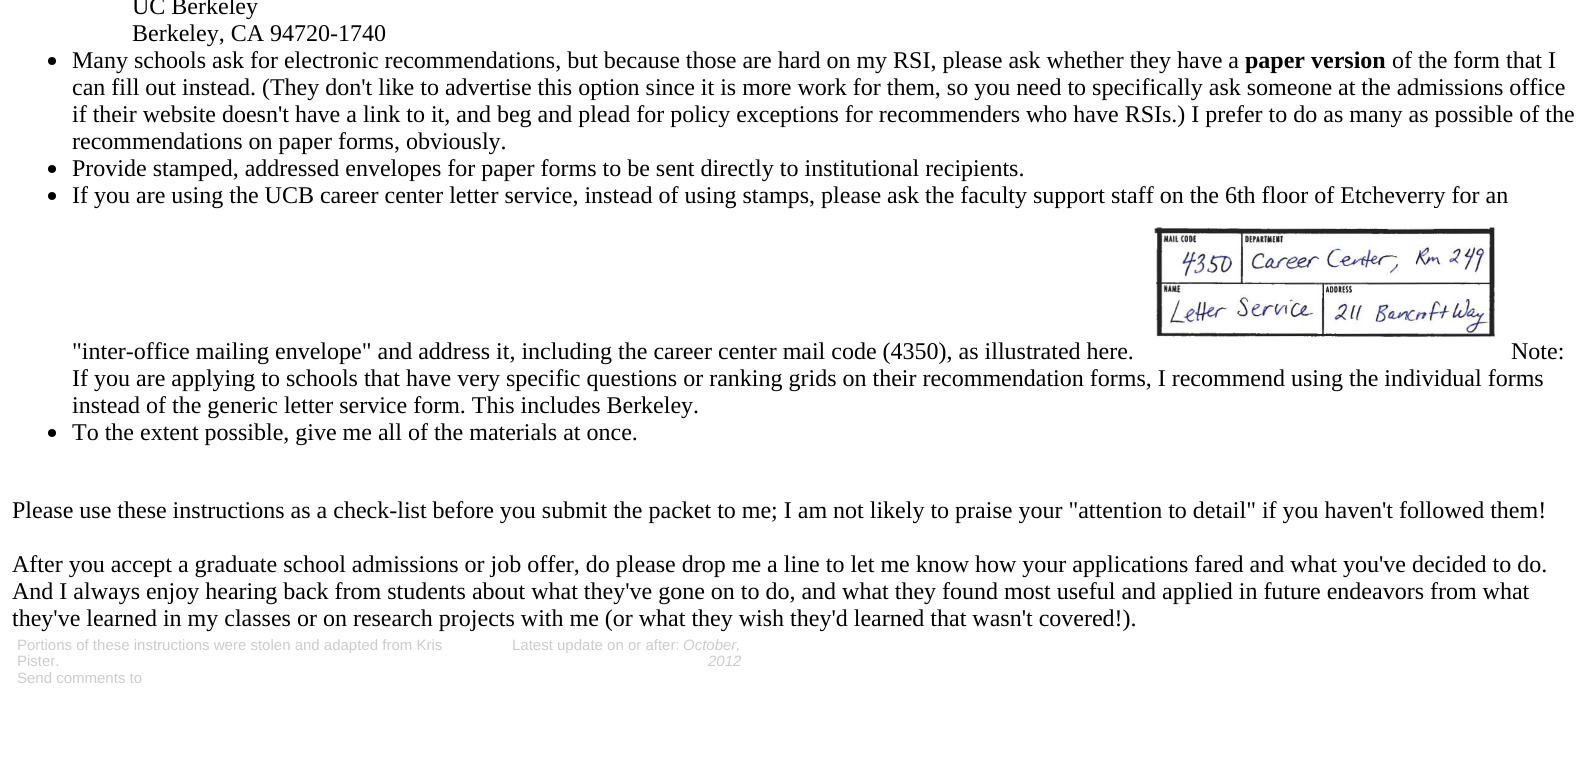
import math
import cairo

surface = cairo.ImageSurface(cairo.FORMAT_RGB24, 1587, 776)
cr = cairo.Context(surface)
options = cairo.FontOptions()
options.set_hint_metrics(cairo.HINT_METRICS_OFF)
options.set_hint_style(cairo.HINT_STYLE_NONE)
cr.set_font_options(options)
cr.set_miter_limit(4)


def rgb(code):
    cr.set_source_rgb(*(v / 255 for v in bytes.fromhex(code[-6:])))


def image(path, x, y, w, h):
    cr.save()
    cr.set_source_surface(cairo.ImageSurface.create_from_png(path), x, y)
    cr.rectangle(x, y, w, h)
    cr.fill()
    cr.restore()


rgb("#ffffff")
cr.paint()
rgb("#000000")
cr.arc(52, 61, 4, 0, 2 * math.pi)
cr.fill()
cr.arc(52, 169, 4, 0, 2 * math.pi)
cr.fill()
cr.arc(52, 196, 4, 0, 2 * math.pi)
cr.fill()
cr.arc(52, 433, 4, 0, 2 * math.pi)
cr.fill()
cr.select_font_face("Liberation Serif")
cr.set_font_size(24)
for x, y, s in [
    (132, 14, "UC Berkeley"),
    (132, 41, "Berkeley, CA 94720-1740"),
    (72, 68, "Many schools ask for electronic recommendations, but because those are hard on my RSI, please ask whether they have a"),
]:
    cr.move_to(x, y)
    cr.show_text(s)
cr.select_font_face("Liberation Serif", cairo.FONT_SLANT_NORMAL, cairo.FONT_WEIGHT_BOLD)
cr.move_to(1245, 68)
cr.show_text("paper version")
cr.select_font_face("Liberation Serif")
for x, y, s in [
    (1392, 68, "of the form that I"),
    (72, 95, "can fill out instead. (They don't like to advertise this option since it is more work for them, so you need to specifically ask someone at the admissions office"),
    (72, 122, "if their website doesn't have a link to it, and beg and plead for policy exceptions for recommenders who have RSIs.) I prefer to do as many as possible of the"),
    (72, 149, "recommendations on paper forms, obviously."),
    (72, 176, "Provide stamped, addressed envelopes for paper forms to be sent directly to institutional recipients."),
    (72, 203, "If you are using the UCB career center letter service, instead of using stamps, please ask the faculty support staff on the 6th floor of Etcheverry for an"),
]:
    cr.move_to(x, y)
    cr.show_text(s)
image("img/1.png", 1154, 208, 343, 131)
for x, y, s in [
    (72, 359, "\"inter-office mailing envelope\" and address it, including the career center mail code (4350), as illustrated here."),
    (1511, 359, "Note:"),
    (72, 386, "If you are applying to schools that have very specific questions or ranking grids on their recommendation forms, I recommend using the individual forms"),
    (72, 413, "instead of the generic letter service form. This includes Berkeley."),
    (72, 440, "To the extent possible, give me all of the materials at once."),
    (12, 518, "Please use these instructions as a check-list before you submit the packet to me; I am not likely to praise your \"attention to detail\" if you haven't followed them!"),
    (12, 572, "After you accept a graduate school admissions or job offer, do please drop me a line to let me know how your applications fared and what you've decided to do."),
    (12, 599, "And I always enjoy hearing back from students about what they've gone on to do, and what they found most useful and applied in future endeavors from what"),
    (12, 626, "they've learned in my classes or on research projects with me (or what they wish they'd learned that wasn't covered!)."),
]:
    cr.move_to(x, y)
    cr.show_text(s)
cr.select_font_face("Liberation Sans")
cr.set_font_size(15)
rgb("#cccccc")
for x, y, s in [
    (17, 650, "Portions of these instructions were stolen and adapted from Kris"),
    (17, 666, "Pister."),
    (17, 683, "Send comments to"),
    (512, 650, "Latest update on or after:"),
]:
    cr.move_to(x, y)
    cr.show_text(s)
cr.select_font_face("Liberation Sans", cairo.FONT_SLANT_ITALIC)
cr.move_to(683, 650)
cr.show_text("October,")
cr.move_to(708, 666)
cr.show_text("2012")
surface.write_to_png("page.png")
